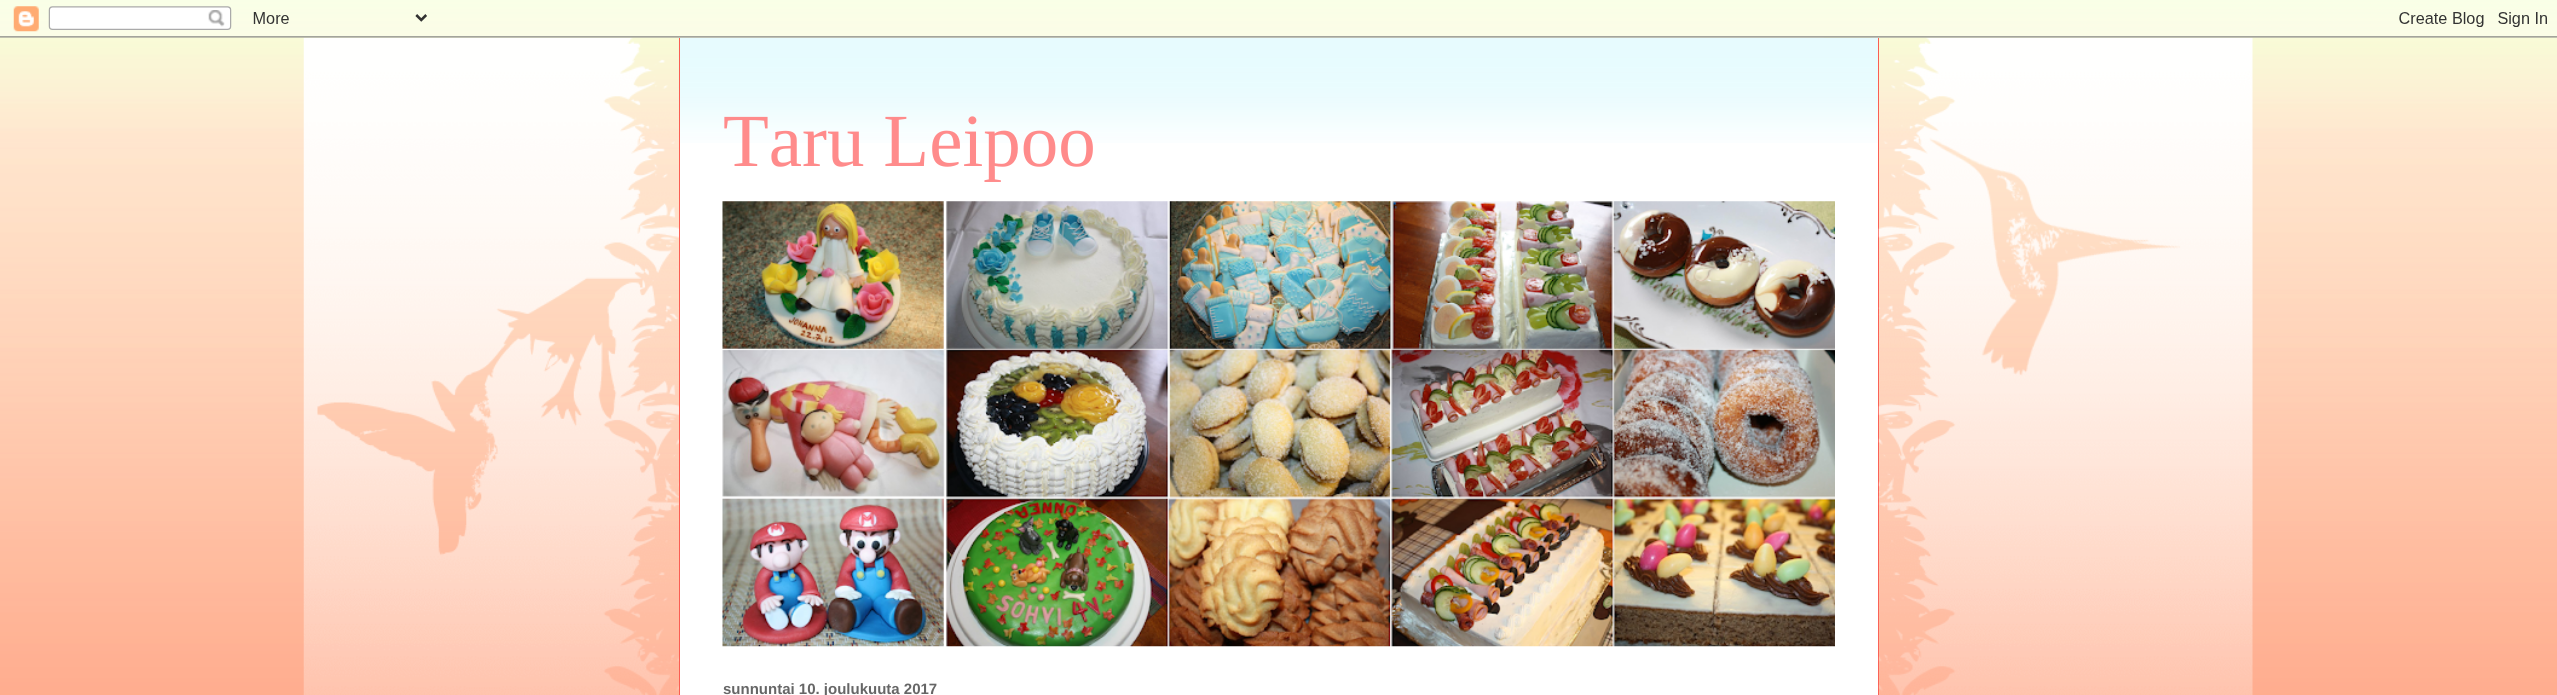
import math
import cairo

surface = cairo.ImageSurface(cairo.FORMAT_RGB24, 2557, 695)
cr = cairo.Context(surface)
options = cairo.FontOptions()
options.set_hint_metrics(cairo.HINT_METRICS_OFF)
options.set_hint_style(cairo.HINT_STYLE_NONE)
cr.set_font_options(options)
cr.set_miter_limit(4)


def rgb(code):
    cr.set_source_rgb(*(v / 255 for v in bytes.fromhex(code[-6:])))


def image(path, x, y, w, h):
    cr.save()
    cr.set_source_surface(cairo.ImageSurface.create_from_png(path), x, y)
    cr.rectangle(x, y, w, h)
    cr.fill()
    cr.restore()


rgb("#ffffff")
cr.paint()
image("img/1.png", 0, 0, 2557, 695)
image("img/3.png", 303, 37, 1576, 658)
rgb("#ffffff")
cr.rectangle(680, 38, 1198, 657)
cr.fill()
image("img/4.png", 678, 37, 1201, 106)
rgb("#fb5e53")
cr.rectangle(1878, 38, 1, 657)
cr.fill()
image("img/5.png", 1878, 37, 375, 658)
image("img/2.png", 0, 0, 2557, 38)
cr.rectangle(679, 38, 1, 657)
cr.fill()
image("img/6.png", 722, 201, 1113, 446)
cr.select_font_face("Liberation Serif")
cr.set_font_size(75)
rgb("#ff8b8b")
cr.move_to(723, 166)
cr.show_text("Taru Leipoo")
cr.select_font_face("Liberation Sans", cairo.FONT_SLANT_NORMAL, cairo.FONT_WEIGHT_BOLD)
cr.set_font_size(15)
rgb("#666666")
cr.move_to(723, 694)
cr.show_text("sunnuntai 10. joulukuuta 2017")
surface.write_to_png("page.png")
